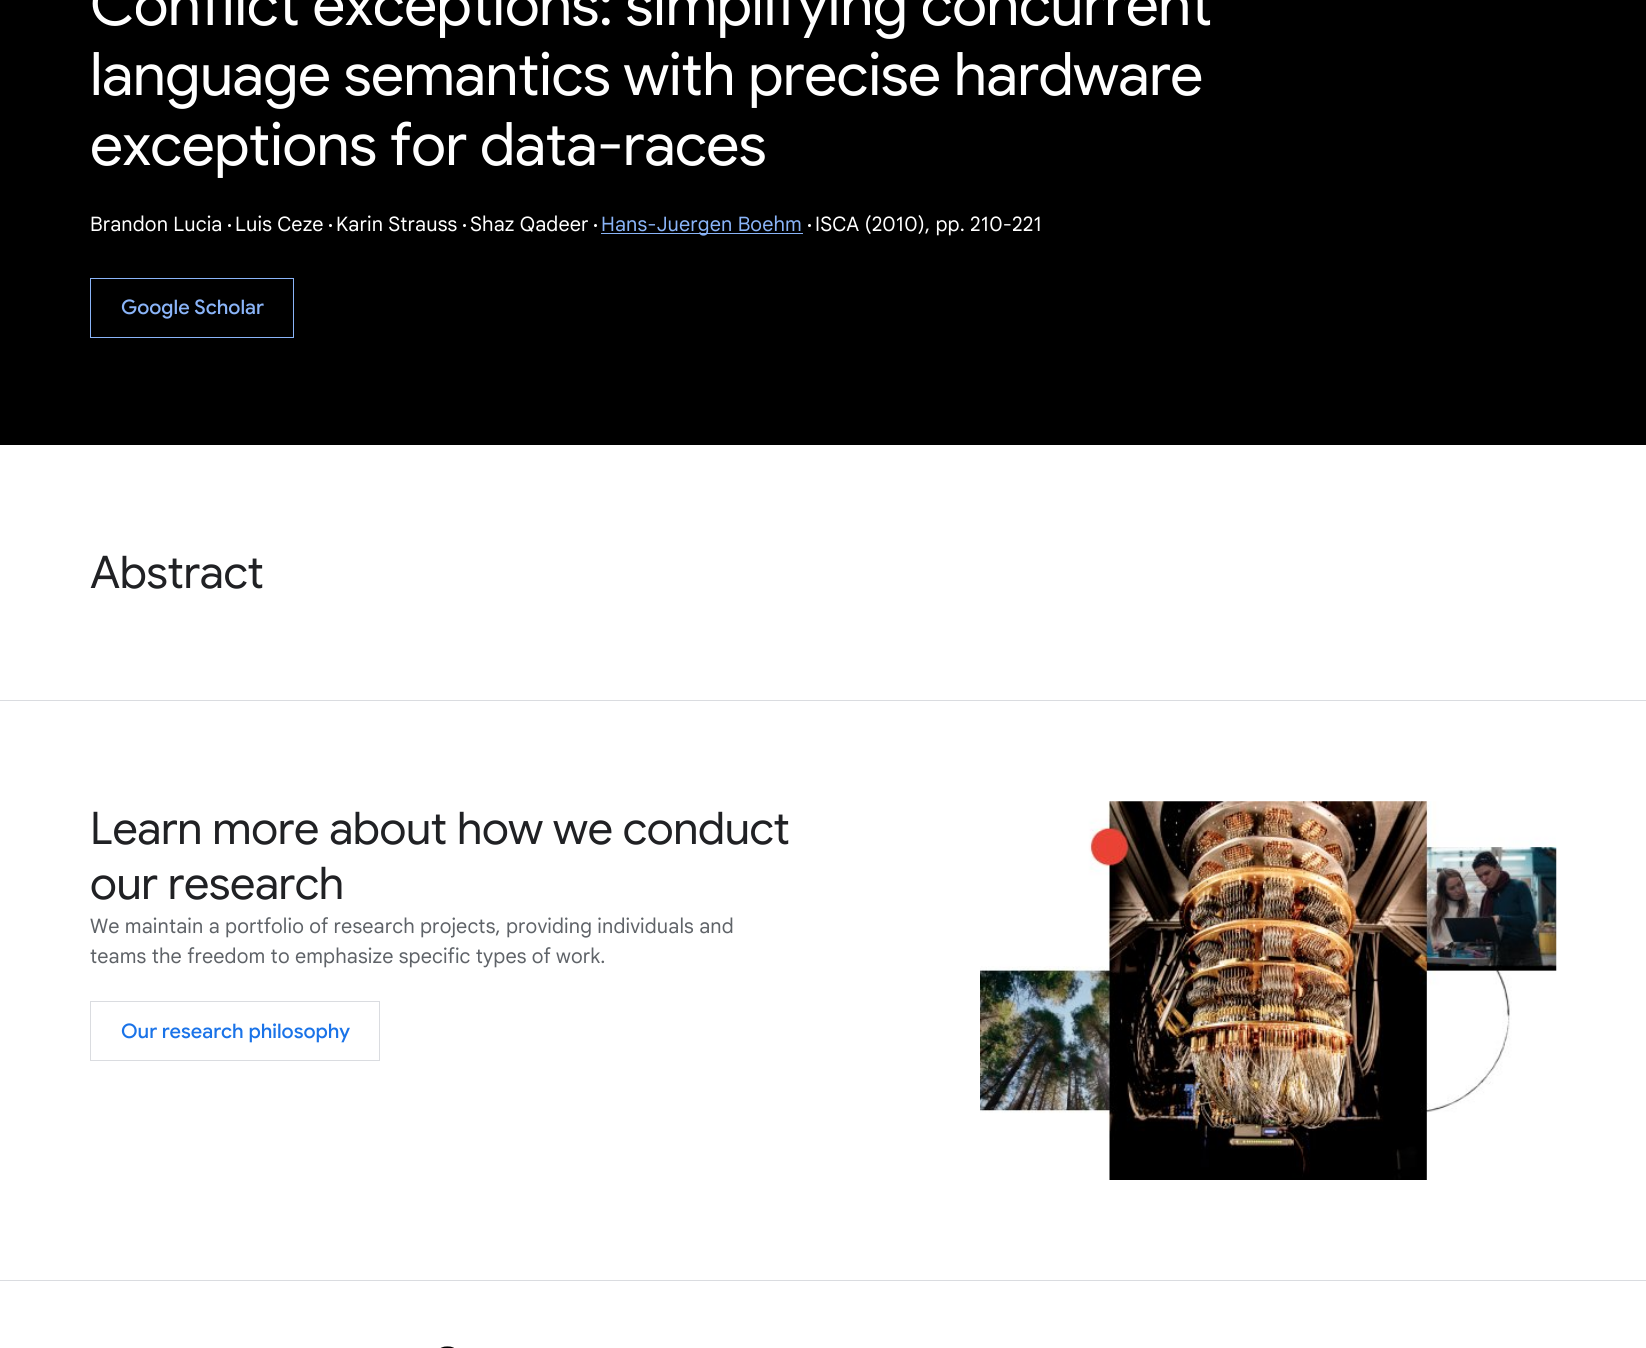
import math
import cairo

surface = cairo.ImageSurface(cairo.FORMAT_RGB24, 1646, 1348)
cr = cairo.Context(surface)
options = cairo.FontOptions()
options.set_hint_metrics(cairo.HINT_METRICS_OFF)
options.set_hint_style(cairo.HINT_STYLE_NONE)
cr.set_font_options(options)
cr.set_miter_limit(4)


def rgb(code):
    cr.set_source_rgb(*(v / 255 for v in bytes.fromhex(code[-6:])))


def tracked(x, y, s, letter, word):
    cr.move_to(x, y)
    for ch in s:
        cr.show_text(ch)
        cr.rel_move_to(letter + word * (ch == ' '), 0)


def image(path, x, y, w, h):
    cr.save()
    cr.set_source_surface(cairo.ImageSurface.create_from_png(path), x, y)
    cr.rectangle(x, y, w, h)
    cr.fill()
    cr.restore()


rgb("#ffffff")
cr.paint()
rgb("#000000")
cr.rectangle(0, 0, 1646, 445)
cr.fill()
rgb("#ffffff")
cr.arc(229.5, 225.5, 1.5, 0, 2 * math.pi)
cr.fill()
cr.arc(330.5, 225.5, 1.5, 0, 2 * math.pi)
cr.fill()
cr.arc(464.5, 225.5, 1.5, 0, 2 * math.pi)
cr.fill()
cr.arc(595.5, 225.5, 1.5, 0, 2 * math.pi)
cr.fill()
rgb("#8ab4f8")
cr.rectangle(601, 233, 202, 1)
cr.fill()
rgb("#ffffff")
cr.arc(809.5, 225.5, 1.5, 0, 2 * math.pi)
cr.fill()
cr.rectangle(90.5, 278.5, 203, 59)
rgb("#8ab4f8")
cr.set_line_width(1)
cr.stroke()
rgb("#dadce0")
cr.rectangle(0, 700, 1646, 1)
cr.fill()
cr.rectangle(90.5, 1001.5, 289, 59)
cr.stroke()
image("img/1.png", 980, 801, 577, 379)
cr.rectangle(0, 1280, 1646, 1)
cr.fill()
image("img/2.png", 440, 1346, 14, 2)
cr.select_font_face("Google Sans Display")
cr.set_font_size(60)
rgb("#ffffff")
for x, y, s in [
    (90, 25, "Conflict exceptions: simplifying concurrent"),
    (90, 95, "language semantics with precise hardware"),
    (90, 165, "exceptions for data-races"),
]:
    tracked(x, y, s, -0.6, 0)
cr.select_font_face("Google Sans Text")
cr.set_font_size(20)
for x, y, s in [
    (90, 231, "Brandon Lucia"),
    (235, 231, "Luis Ceze"),
    (336, 231, "Karin Strauss"),
    (470, 231, "Shaz Qadeer"),
]:
    tracked(x, y, s, 0.12, 0)
rgb("#8ab4f8")
tracked(601, 231, "Hans-Juergen Boehm", 0.12, 0)
rgb("#ffffff")
tracked(815, 231, "ISCA (2010), pp. 210-221", 0.12, 0)
cr.select_font_face("Google Sans Medium")
rgb("#8ab4f8")
cr.move_to(121, 314)
cr.show_text("Google Scholar")
cr.select_font_face("Google Sans")
cr.set_font_size(45)
rgb("#202124")
for x, y, s in [
    (90, 588, "Abstract"),
    (90, 844, "Learn more about how we conduct"),
    (90, 899, "our research"),
]:
    tracked(x, y, s, -0.3, 0)
cr.select_font_face("Google Sans Text")
cr.set_font_size(20)
rgb("#5f6368")
tracked(90, 933, "We maintain a portfolio of research projects, providing individuals and", 0.12, 0)
tracked(90, 963, "teams the freedom to emphasize specific types of work.", 0.12, 0)
cr.select_font_face("Google Sans Medium")
rgb("#1a73e8")
cr.move_to(121, 1038)
cr.show_text("Our research philosophy")
surface.write_to_png("page.png")
